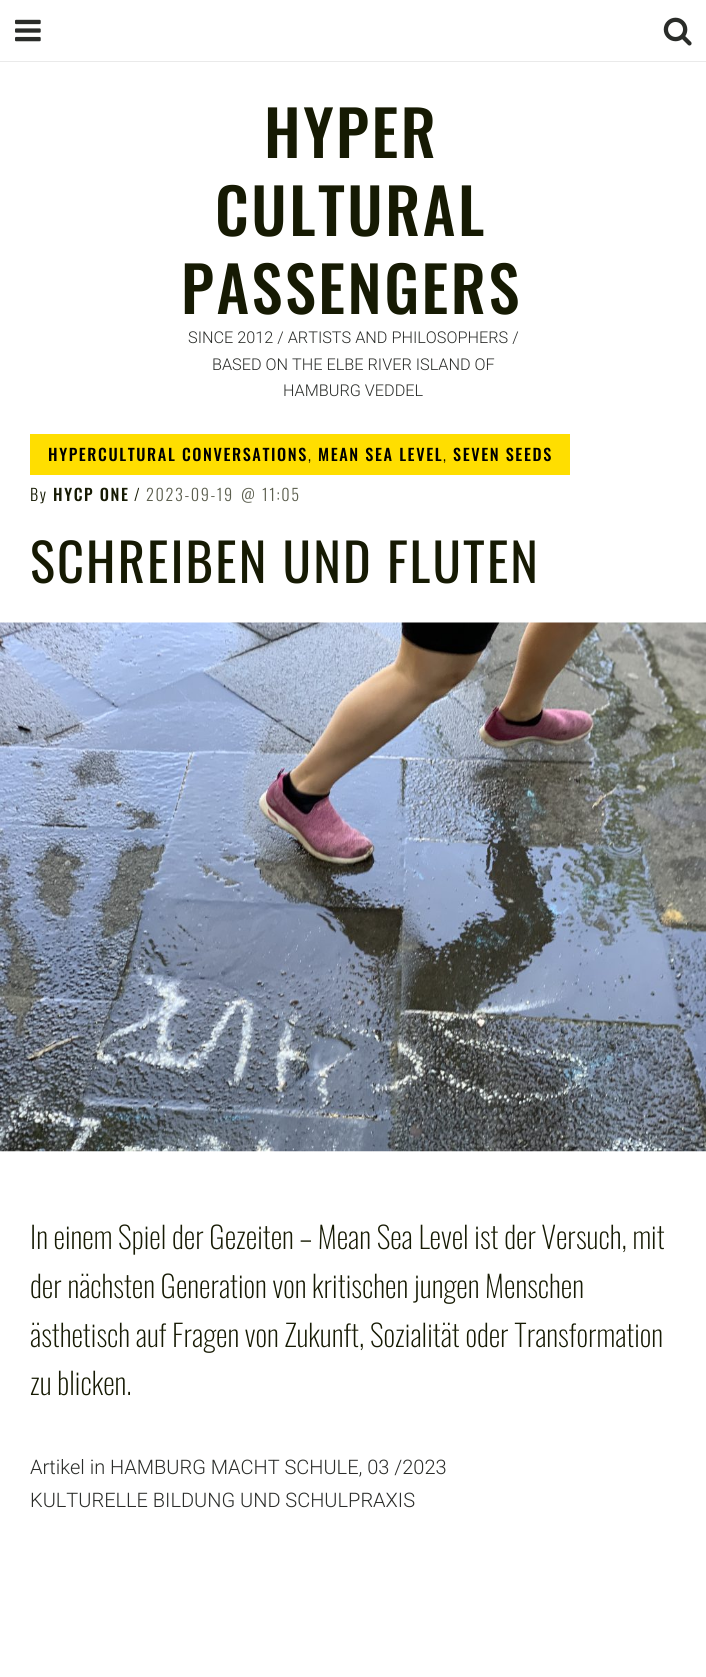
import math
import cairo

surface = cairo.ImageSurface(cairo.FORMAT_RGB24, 706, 1677)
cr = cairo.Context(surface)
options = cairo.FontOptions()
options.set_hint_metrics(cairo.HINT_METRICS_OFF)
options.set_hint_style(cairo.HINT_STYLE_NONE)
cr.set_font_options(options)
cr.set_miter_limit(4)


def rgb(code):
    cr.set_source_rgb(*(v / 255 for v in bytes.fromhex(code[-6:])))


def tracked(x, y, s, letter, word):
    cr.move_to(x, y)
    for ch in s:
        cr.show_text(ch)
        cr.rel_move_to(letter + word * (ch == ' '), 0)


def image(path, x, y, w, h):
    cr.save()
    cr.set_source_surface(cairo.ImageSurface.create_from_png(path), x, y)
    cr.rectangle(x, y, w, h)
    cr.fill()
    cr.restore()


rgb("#ffffff")
cr.paint()
image("img/1.png", 15, 19, 26, 23)
image("img/2.png", 663, 17, 29, 29)
rgb("#eaeaea")
cr.rectangle(0, 61, 706, 1)
cr.fill()
rgb("#ffde00")
cr.rectangle(30, 434, 540, 41)
cr.fill()
image("img/3.png", 0, 622, 706, 530)
cr.select_font_face("Oswald Medium")
cr.set_font_size(62.5)
rgb("#161a03")
for x, y, s in [
    (264, 158, "HYPER"),
    (215, 236, "CULTURAL"),
    (181, 314, "PASSENGERS"),
]:
    tracked(x, y, s, 2.5, 0)
cr.select_font_face("Roboto Light")
cr.set_font_size(16.25)
rgb("#2a2c29")
for x, y, s in [
    (188, 343, "SINCE 2012 / ARTISTS AND PHILOSOPHERS /"),
    (212, 370, "BASED ON THE ELBE RIVER ISLAND OF"),
    (283, 396, "HAMBURG VEDDEL"),
]:
    cr.move_to(x, y)
    cr.show_text(s)
cr.select_font_face("Oswald Medium")
rgb("#000000")
tracked(48, 461, "HYPERCULTURAL CONVERSATIONS", 1.6, 0)
cr.select_font_face("Oswald Light")
tracked(308, 461, ",", 1.6, 0)
cr.select_font_face("Oswald Medium")
tracked(318, 461, "MEAN SEA LEVEL", 1.6, 0)
cr.select_font_face("Oswald Light")
tracked(443, 461, ",", 1.6, 0)
cr.select_font_face("Oswald Medium")
tracked(453, 461, "SEVEN SEEDS", 1.6, 0)
cr.select_font_face("Oswald Light")
rgb("#161a03")
tracked(30, 501, "By", 1.6, 0)
cr.select_font_face("Oswald Medium")
tracked(53, 501, "HYCP ONE", 1.6, 0)
cr.select_font_face("Oswald Light")
tracked(134, 501, "/", 1.6, 0)
rgb("#5c5f4f")
for x, y, s in [
    (146, 501, "2023-09-19"),
    (241, 501, "@"),
    (262, 501, "11:05"),
]:
    tracked(x, y, s, 1.6, 0)
cr.select_font_face("Oswald")
cr.set_font_size(52.5)
rgb("#161a03")
tracked(30, 583, "SCHREIBEN UND FLUTEN", 2.1, 0)
cr.select_font_face("Oswald ExtraLight")
cr.set_font_size(30)
for x, y, s in [
    (30, 1249, "In einem Spiel der Gezeiten – Mean Sea Level ist der Versuch, mit"),
    (30, 1298, "der nächsten Generation von kritischen jungen Menschen"),
    (30, 1347, "ästhetisch auf Fragen von Zukunft, Sozialität oder Transformation"),
    (30, 1395, "zu blicken."),
]:
    cr.move_to(x, y)
    cr.show_text(s)
cr.select_font_face("Roboto Light")
cr.set_font_size(20)
rgb("#2a2c29")
cr.move_to(30, 1474)
cr.show_text("Artikel in HAMBURG MACHT SCHULE, 03 /2023")
cr.move_to(30, 1507)
cr.show_text("KULTURELLE BILDUNG UND SCHULPRAXIS")
surface.write_to_png("page.png")
